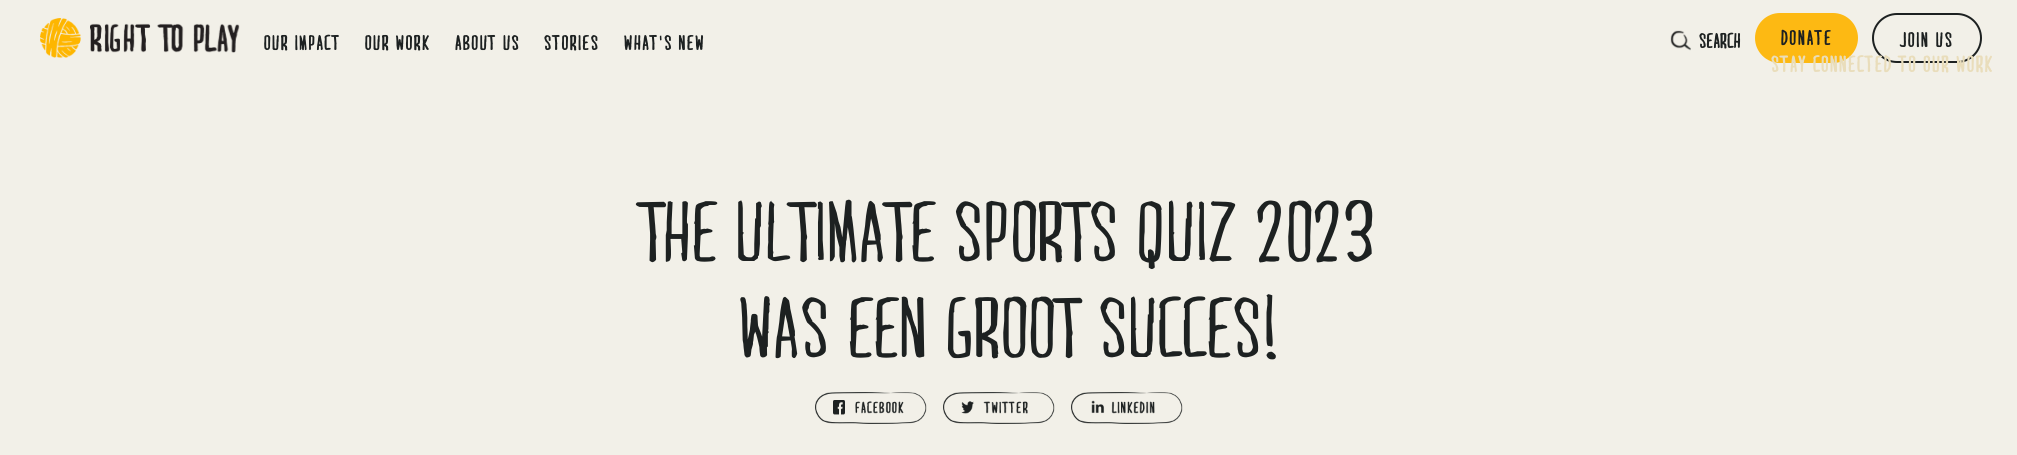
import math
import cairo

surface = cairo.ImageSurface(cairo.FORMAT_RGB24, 2017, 455)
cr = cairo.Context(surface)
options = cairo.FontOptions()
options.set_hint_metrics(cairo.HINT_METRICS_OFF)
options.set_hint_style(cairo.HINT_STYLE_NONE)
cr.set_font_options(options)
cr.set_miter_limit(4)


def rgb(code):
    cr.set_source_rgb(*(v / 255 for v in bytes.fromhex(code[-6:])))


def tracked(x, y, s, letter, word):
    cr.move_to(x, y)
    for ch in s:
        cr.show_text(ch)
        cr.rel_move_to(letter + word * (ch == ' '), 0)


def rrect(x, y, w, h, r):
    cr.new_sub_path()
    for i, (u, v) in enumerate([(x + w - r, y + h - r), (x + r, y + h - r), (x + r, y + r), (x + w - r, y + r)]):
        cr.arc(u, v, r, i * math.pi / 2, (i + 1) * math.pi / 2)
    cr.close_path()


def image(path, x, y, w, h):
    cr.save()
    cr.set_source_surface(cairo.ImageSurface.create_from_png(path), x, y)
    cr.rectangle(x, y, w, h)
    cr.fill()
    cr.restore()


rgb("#f2f0e8")
cr.paint()
image("img/1.png", 40, 18, 200, 40)
image("img/2.png", 1670, 30, 21, 21)
rgb("#fdb913")
rrect(1755, 13, 103, 50, 25)
cr.fill()
rrect(1873, 14, 108, 48, 24)
rgb("#1d2121")
cr.stroke()
image("img/3.png", 815, 392, 112, 32)
image("img/4.png", 943, 392, 112, 32)
image("img/5.png", 1071, 392, 112, 32)
cr.select_font_face("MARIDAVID", cairo.FONT_SLANT_NORMAL, cairo.FONT_WEIGHT_BOLD)
cr.set_font_size(20)
for x, y, s in [
    (264, 50, "OUR IMPACT"),
    (365, 50, "OUR WORK"),
    (455, 50, "ABOUT US"),
    (544, 50, "STORIES"),
    (624, 50, "WHAT'S NEW"),
]:
    tracked(x, y, s, 1.7, 0)
tracked(1699, 48, "SEARCH", 0.5, 0)
tracked(1781, 45, "DONATE", 2, 0)
tracked(1900, 47, "JOIN US", 2, 0)
cr.set_font_size(22)
rgb("#e9ddbb")
tracked(1771, 72, "STAY CONNECTED TO OUR WORK", 1.7, 0)
cr.select_font_face("MARIDAVID")
cr.set_font_size(80)
rgb("#1d2121")
tracked(640, 261, "THE ULTIMATE SPORTS QUIZ 2023", 2, 0)
tracked(739, 357, "WAS EEN GROOT SUCCES!", 2, 0)
surface.write_to_png("page.png")
